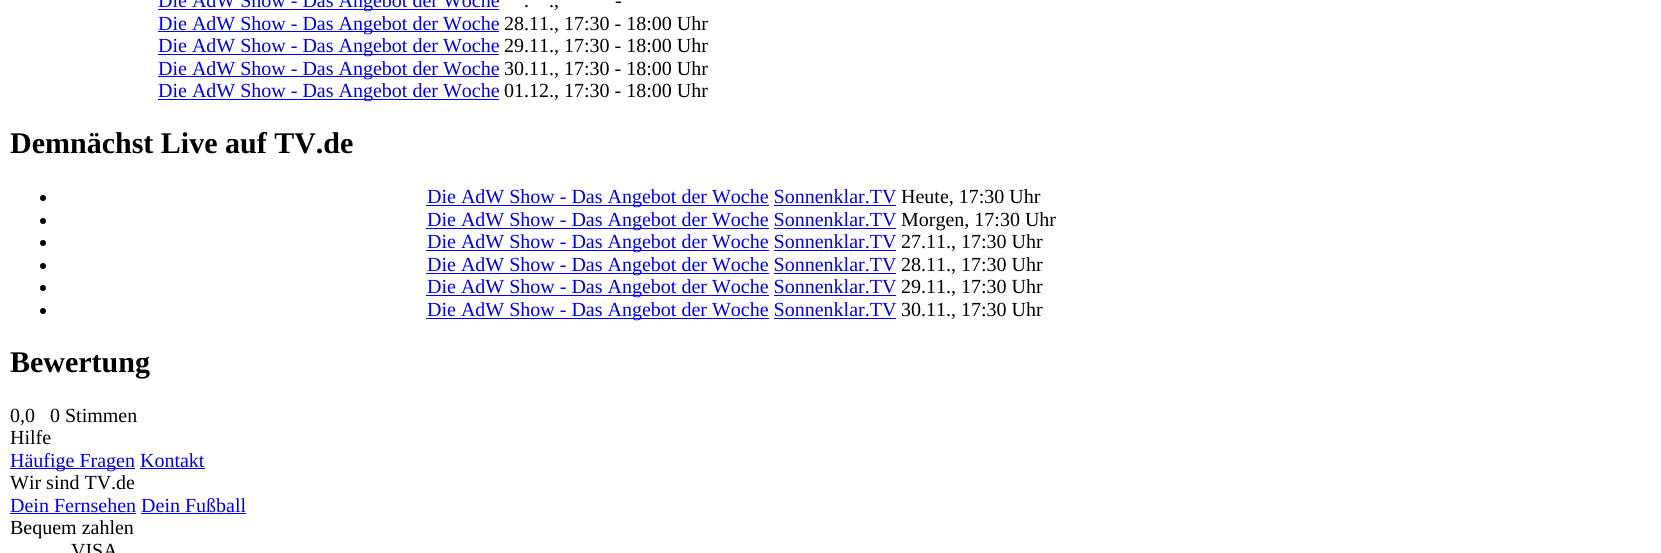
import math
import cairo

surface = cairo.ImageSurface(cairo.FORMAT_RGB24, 1661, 553)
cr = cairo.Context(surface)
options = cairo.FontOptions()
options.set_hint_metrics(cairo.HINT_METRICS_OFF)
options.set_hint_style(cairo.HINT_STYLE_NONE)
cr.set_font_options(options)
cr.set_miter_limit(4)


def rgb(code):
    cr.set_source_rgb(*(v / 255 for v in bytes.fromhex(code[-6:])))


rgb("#ffffff")
cr.paint()
for x, y, w, h, color in [
    (158, 9, 341, 1, "#0000ee"),
    (158, 31, 341, 1, "#0000ee"),
    (158, 54, 341, 1, "#0000ee"),
    (158, 76, 341, 1, "#0000ee"),
    (158, 99, 341, 1, "#0000ee"),
]:
    rgb(color)
    cr.rectangle(x, y, w, h)
    cr.fill()
rgb("#000000")
cr.arc(43, 198, 3, 0, 2 * math.pi)
cr.fill()
rgb("#0000ee")
cr.rectangle(426, 205, 343, 1)
cr.fill()
cr.rectangle(774, 205, 122, 1)
cr.fill()
rgb("#000000")
cr.arc(43, 221, 3, 0, 2 * math.pi)
cr.fill()
rgb("#0000ee")
cr.rectangle(426, 228, 343, 1)
cr.fill()
cr.rectangle(774, 228, 122, 1)
cr.fill()
rgb("#000000")
cr.arc(43, 243, 3, 0, 2 * math.pi)
cr.fill()
rgb("#0000ee")
cr.rectangle(426, 250, 343, 1)
cr.fill()
cr.rectangle(774, 250, 122, 1)
cr.fill()
rgb("#000000")
cr.arc(43, 266, 3, 0, 2 * math.pi)
cr.fill()
rgb("#0000ee")
cr.rectangle(426, 273, 343, 1)
cr.fill()
cr.rectangle(774, 273, 122, 1)
cr.fill()
rgb("#000000")
cr.arc(43, 288, 3, 0, 2 * math.pi)
cr.fill()
rgb("#0000ee")
cr.rectangle(426, 295, 343, 1)
cr.fill()
cr.rectangle(774, 295, 122, 1)
cr.fill()
rgb("#000000")
cr.arc(43, 311, 3, 0, 2 * math.pi)
cr.fill()
for x, y, w, h, color in [
    (426, 318, 343, 1, "#0000ee"),
    (774, 318, 122, 1, "#0000ee"),
    (10, 468, 125, 1, "#0000ee"),
    (140, 468, 65, 1, "#0000ee"),
    (10, 513, 126, 1, "#0000ee"),
    (141, 513, 105, 1, "#0000ee"),
]:
    rgb(color)
    cr.rectangle(x, y, w, h)
    cr.fill()
cr.select_font_face("Liberation Serif")
cr.set_font_size(20)
cr.move_to(158, 7)
cr.show_text("Die AdW Show - Das Angebot der Woche")
rgb("#000000")
for x, y, s in [
    (615, 7, "-"),
    (524, 7, "."),
    (549, 7, ".,"),
]:
    cr.move_to(x, y)
    cr.show_text(s)
rgb("#0000ee")
cr.move_to(158, 30)
cr.show_text("Die AdW Show - Das Angebot der Woche")
rgb("#000000")
cr.move_to(504, 30)
cr.show_text("28.11., 17:30 - 18:00 Uhr")
rgb("#0000ee")
cr.move_to(158, 52)
cr.show_text("Die AdW Show - Das Angebot der Woche")
rgb("#000000")
cr.move_to(504, 52)
cr.show_text("29.11., 17:30 - 18:00 Uhr")
rgb("#0000ee")
cr.move_to(158, 75)
cr.show_text("Die AdW Show - Das Angebot der Woche")
rgb("#000000")
cr.move_to(504, 75)
cr.show_text("30.11., 17:30 - 18:00 Uhr")
rgb("#0000ee")
cr.move_to(158, 97)
cr.show_text("Die AdW Show - Das Angebot der Woche")
rgb("#000000")
cr.move_to(504, 97)
cr.show_text("01.12., 17:30 - 18:00 Uhr")
cr.select_font_face("Liberation Serif", cairo.FONT_SLANT_NORMAL, cairo.FONT_WEIGHT_BOLD)
cr.set_font_size(30)
cr.move_to(10, 153)
cr.show_text("Demnächst Live auf TV.de")
cr.select_font_face("Liberation Serif")
cr.set_font_size(20)
rgb("#0000ee")
cr.move_to(427, 203)
cr.show_text("Die AdW Show - Das Angebot der Woche Sonnenklar.TV")
rgb("#000000")
cr.move_to(901, 203)
cr.show_text("Heute, 17:30 Uhr")
rgb("#0000ee")
cr.move_to(427, 226)
cr.show_text("Die AdW Show - Das Angebot der Woche Sonnenklar.TV")
rgb("#000000")
cr.move_to(901, 226)
cr.show_text("Morgen, 17:30 Uhr")
rgb("#0000ee")
cr.move_to(427, 248)
cr.show_text("Die AdW Show - Das Angebot der Woche Sonnenklar.TV")
rgb("#000000")
cr.move_to(901, 248)
cr.show_text("27.11., 17:30 Uhr")
rgb("#0000ee")
cr.move_to(427, 271)
cr.show_text("Die AdW Show - Das Angebot der Woche Sonnenklar.TV")
rgb("#000000")
cr.move_to(901, 271)
cr.show_text("28.11., 17:30 Uhr")
rgb("#0000ee")
cr.move_to(427, 293)
cr.show_text("Die AdW Show - Das Angebot der Woche Sonnenklar.TV")
rgb("#000000")
cr.move_to(901, 293)
cr.show_text("29.11., 17:30 Uhr")
rgb("#0000ee")
cr.move_to(427, 316)
cr.show_text("Die AdW Show - Das Angebot der Woche Sonnenklar.TV")
rgb("#000000")
cr.move_to(901, 316)
cr.show_text("30.11., 17:30 Uhr")
cr.select_font_face("Liberation Serif", cairo.FONT_SLANT_NORMAL, cairo.FONT_WEIGHT_BOLD)
cr.set_font_size(30)
cr.move_to(10, 372)
cr.show_text("Bewertung")
cr.select_font_face("Liberation Serif")
cr.set_font_size(20)
for x, y, s in [
    (10, 422, "0,0"),
    (50, 422, "0 Stimmen"),
    (10, 444, "Hilfe"),
]:
    cr.move_to(x, y)
    cr.show_text(s)
rgb("#0000ee")
cr.move_to(10, 467)
cr.show_text("Häufige Fragen Kontakt")
rgb("#000000")
cr.move_to(10, 489)
cr.show_text("Wir sind TV.de")
rgb("#0000ee")
cr.move_to(10, 512)
cr.show_text("Dein Fernsehen Dein Fußball")
rgb("#000000")
cr.move_to(10, 534)
cr.show_text("Bequem zahlen")
cr.move_to(71, 557)
cr.show_text("VISA")
surface.write_to_png("page.png")
